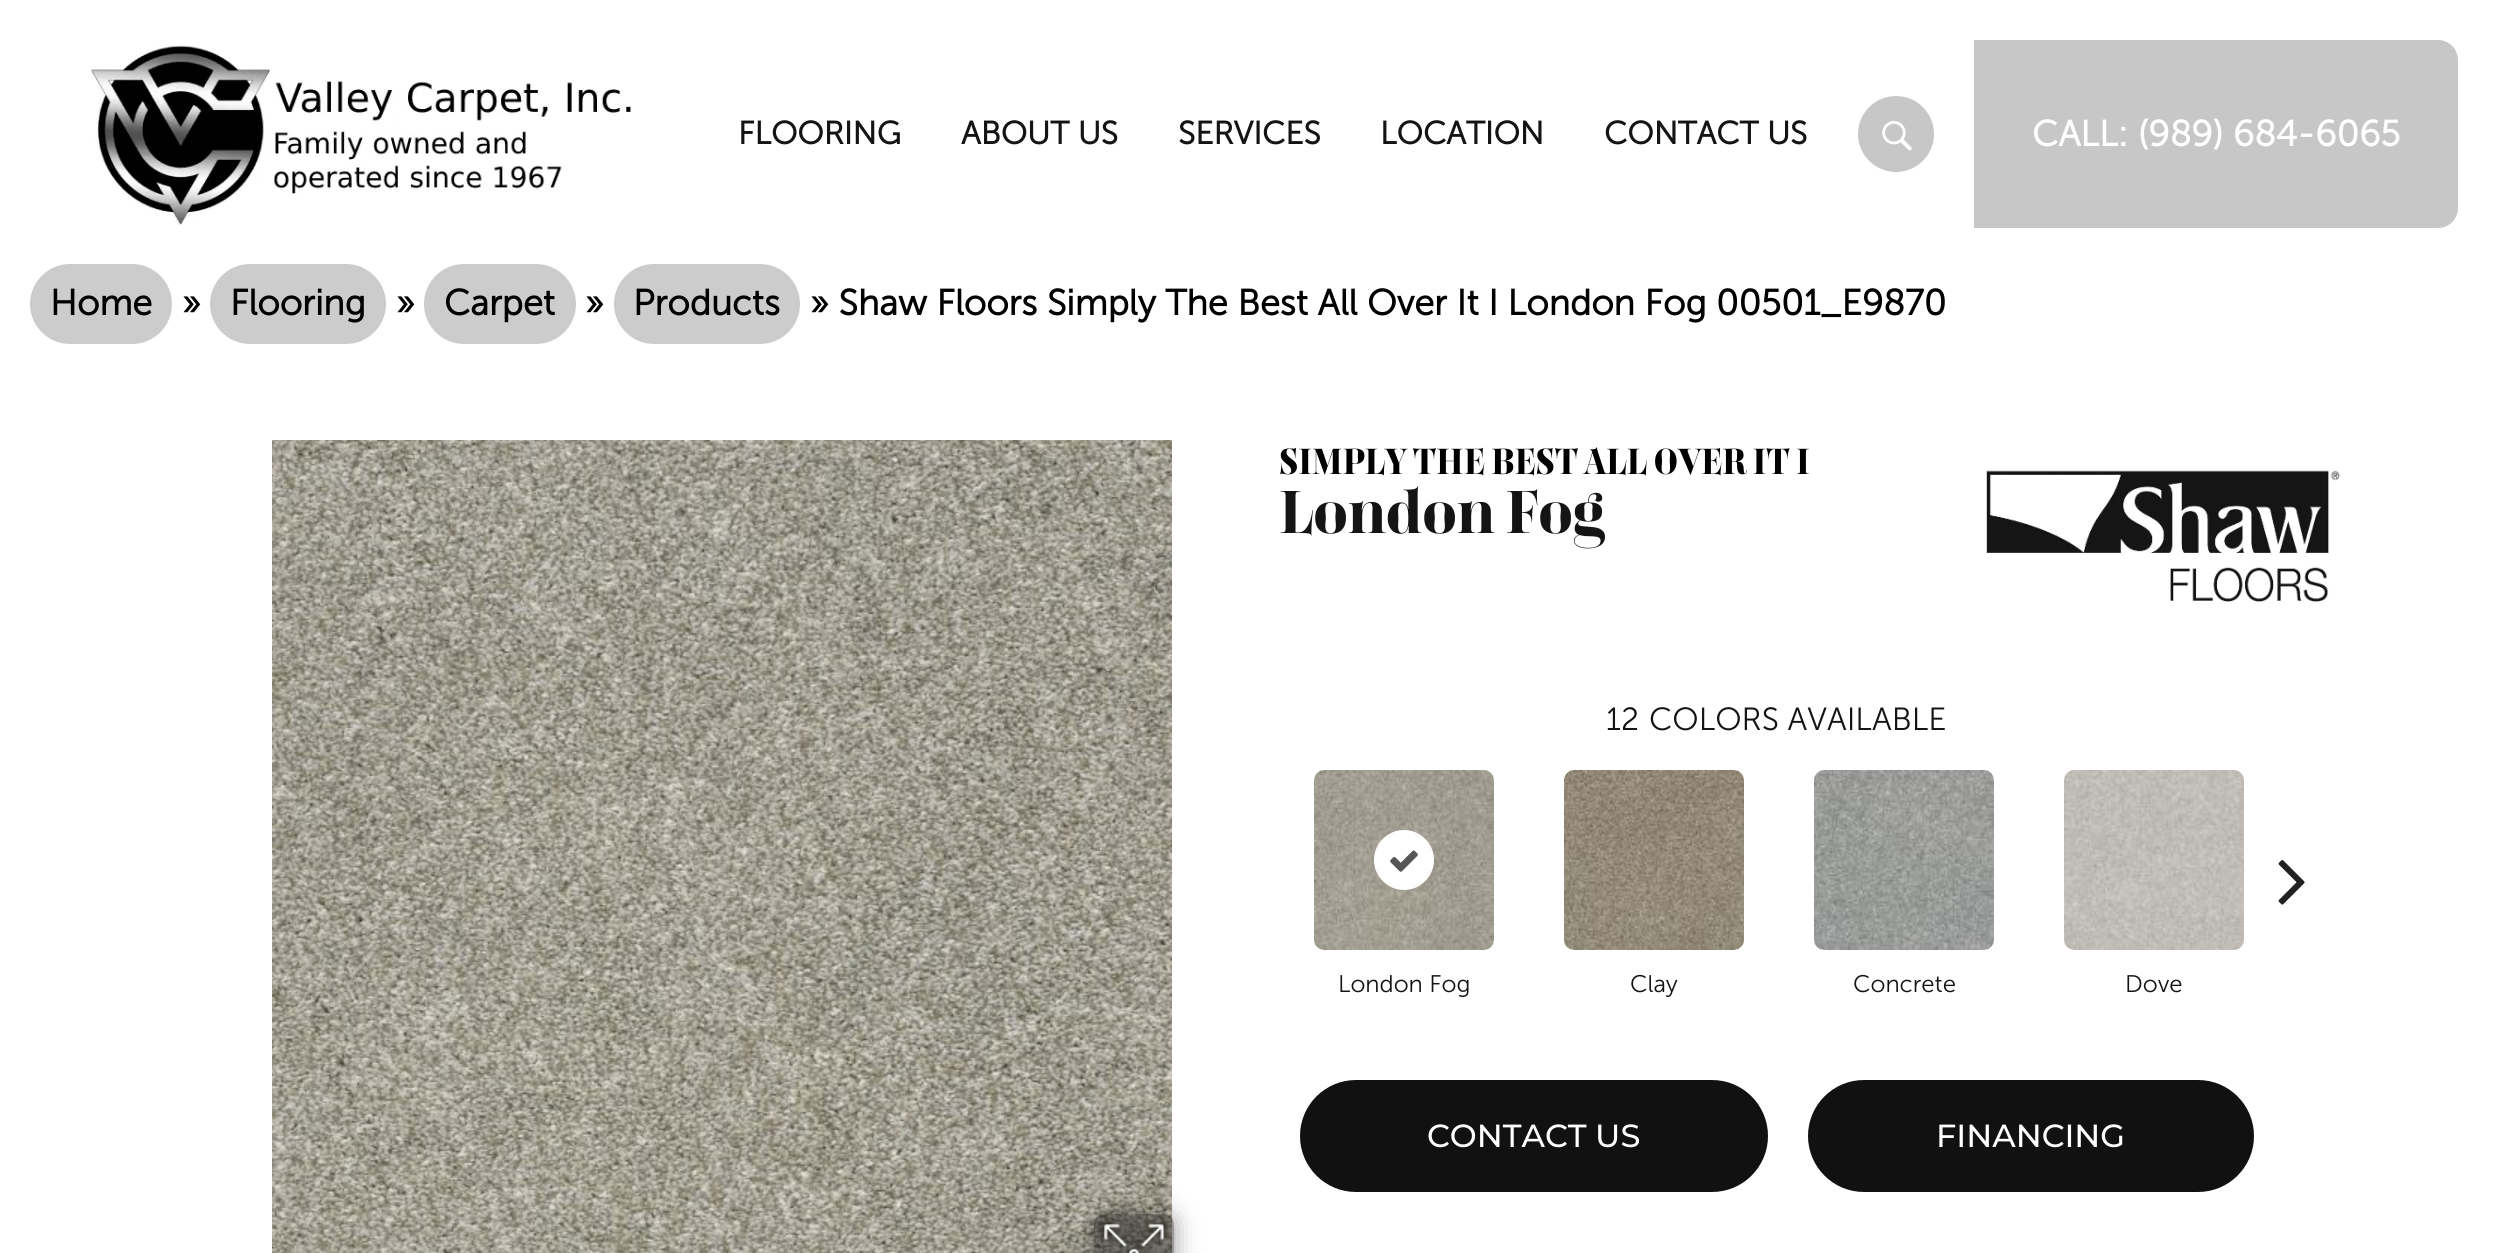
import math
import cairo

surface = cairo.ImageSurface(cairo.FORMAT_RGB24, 2497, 1253)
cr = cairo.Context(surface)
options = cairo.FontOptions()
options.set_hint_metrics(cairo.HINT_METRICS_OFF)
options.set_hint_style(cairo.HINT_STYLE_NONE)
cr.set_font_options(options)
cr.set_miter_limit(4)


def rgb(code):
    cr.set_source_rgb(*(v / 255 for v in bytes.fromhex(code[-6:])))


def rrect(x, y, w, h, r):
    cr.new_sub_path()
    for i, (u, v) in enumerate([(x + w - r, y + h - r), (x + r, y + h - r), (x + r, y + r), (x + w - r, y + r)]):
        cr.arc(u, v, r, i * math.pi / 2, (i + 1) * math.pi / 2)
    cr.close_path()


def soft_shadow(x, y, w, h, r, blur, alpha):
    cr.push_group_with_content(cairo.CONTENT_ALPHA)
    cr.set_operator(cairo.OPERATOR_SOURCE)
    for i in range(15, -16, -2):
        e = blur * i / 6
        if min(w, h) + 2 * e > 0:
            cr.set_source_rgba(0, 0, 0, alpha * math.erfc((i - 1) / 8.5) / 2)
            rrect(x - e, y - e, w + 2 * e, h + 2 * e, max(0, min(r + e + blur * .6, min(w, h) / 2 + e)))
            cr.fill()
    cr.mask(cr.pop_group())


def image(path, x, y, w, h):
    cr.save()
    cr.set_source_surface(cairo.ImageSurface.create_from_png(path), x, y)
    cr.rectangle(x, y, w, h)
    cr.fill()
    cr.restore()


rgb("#ffffff")
cr.paint()
image("img/1.png", 91, 45, 541, 180)
rgb("#c7c7c7")
cr.arc(1896, 134, 38, 0, 2 * math.pi)
cr.fill()
image("img/2.png", 1882, 121, 30, 30)
cr.new_path()
cr.move_to(1974, 40)
cr.line_to(2438, 40)
cr.curve_to(2449, 40, 2458, 49, 2458, 60)
cr.line_to(2458, 208)
cr.curve_to(2458, 219, 2449, 228, 2438, 228)
cr.line_to(1974, 228)
cr.close_path()
cr.fill()
rgb("#cccccc")
rrect(30, 264, 142, 80, 40)
cr.fill()
rrect(210, 264, 176, 80, 40)
cr.fill()
rrect(424, 264, 152, 80, 40)
cr.fill()
rrect(614, 264, 186, 80, 40)
cr.fill()
image("img/3.png", 272, 440, 900, 813)
cr.save()
cr.set_fill_rule(cairo.FILL_RULE_EVEN_ODD)
cr.new_path()
cr.move_to(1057, 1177)
cr.line_to(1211, 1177)
cr.line_to(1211, 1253)
cr.line_to(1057, 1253)
cr.close_path()
cr.move_to(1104, 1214)
cr.line_to(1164, 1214)
cr.curve_to(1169.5, 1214, 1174, 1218.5, 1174, 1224)
cr.line_to(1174, 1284)
cr.curve_to(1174, 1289.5, 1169.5, 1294, 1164, 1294)
cr.line_to(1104, 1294)
cr.curve_to(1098.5, 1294, 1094, 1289.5, 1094, 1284)
cr.line_to(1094, 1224)
cr.curve_to(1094, 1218.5, 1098.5, 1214, 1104, 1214)
cr.close_path()
cr.clip()
rgb("#000000")
soft_shadow(1094, 1214, 80, 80, 10, 12, 0.41)
cr.restore()
cr.set_source_rgba(0, 0, 0, 0.4)
rrect(1094, 1214, 80, 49, 10)
cr.fill()
image("img/4.png", 1098, 1217, 73, 36)
image("img/5.png", 1986, 470, 354, 132)
image("img/6.png", 2278, 860, 27, 45)
image("img/7.png", 1314, 770, 180, 180)
rgb("#ffffff")
cr.arc(1404, 860, 30, 0, 2 * math.pi)
cr.fill()
image("img/8.png", 1390, 850, 28, 22)
image("img/9.png", 1564, 770, 180, 180)
image("img/10.png", 1814, 770, 180, 180)
image("img/11.png", 2064, 770, 180, 180)
rgb("#111111")
rrect(1300, 1080, 468, 112, 56)
cr.fill()
rrect(1808, 1080, 446, 112, 56)
cr.fill()
cr.select_font_face("Museo Sans", cairo.FONT_SLANT_NORMAL, cairo.FONT_WEIGHT_BOLD)
cr.set_font_size(32)
rgb("#141414")
for x, y, s in [
    (738, 144, "FLOORING"),
    (961, 144, "ABOUT US"),
    (1178, 144, "SERVICES"),
    (1380, 144, "LOCATION"),
    (1604, 144, "CONTACT US"),
]:
    cr.move_to(x, y)
    cr.show_text(s)
cr.set_font_size(36)
rgb("#ffffff")
cr.move_to(2032, 146)
cr.show_text("CALL: (989) 684-6065")
rgb("#000000")
for x, y, s in [
    (50, 315, "Home"),
    (182, 315, "»"),
    (230, 315, "Flooring"),
    (396, 315, "»"),
    (444, 315, "Carpet"),
    (585, 315, "»"),
    (633, 315, "Products"),
    (810, 315, "» Shaw Floors Simply The Best All Over It I London Fog 00501_E9870"),
]:
    cr.move_to(x, y)
    cr.show_text(s)
cr.select_font_face("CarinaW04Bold", cairo.FONT_SLANT_NORMAL, cairo.FONT_WEIGHT_BOLD)
cr.move_to(1279, 474)
cr.show_text("SIMPLY THE BEST ALL OVER IT I")
cr.set_font_size(60)
rgb("#141414")
cr.move_to(1279, 533)
cr.show_text("London Fog")
cr.select_font_face("Museo Sans Light")
cr.set_font_size(32)
cr.move_to(1606, 730)
cr.show_text("12")
cr.move_to(1649, 730)
cr.show_text("COLORS AVAILABLE")
cr.set_font_size(24)
for x, y, s in [
    (1338, 992, "London Fog"),
    (1630, 992, "Clay"),
    (1853, 992, "Concrete"),
    (2125, 992, "Dove"),
]:
    cr.move_to(x, y)
    cr.show_text(s)
cr.select_font_face("Montserrat Medium")
cr.set_font_size(32)
rgb("#ffffff")
cr.move_to(1427, 1147)
cr.show_text("CONTACT US")
cr.move_to(1936, 1147)
cr.show_text("FINANCING")
surface.write_to_png("page.png")
